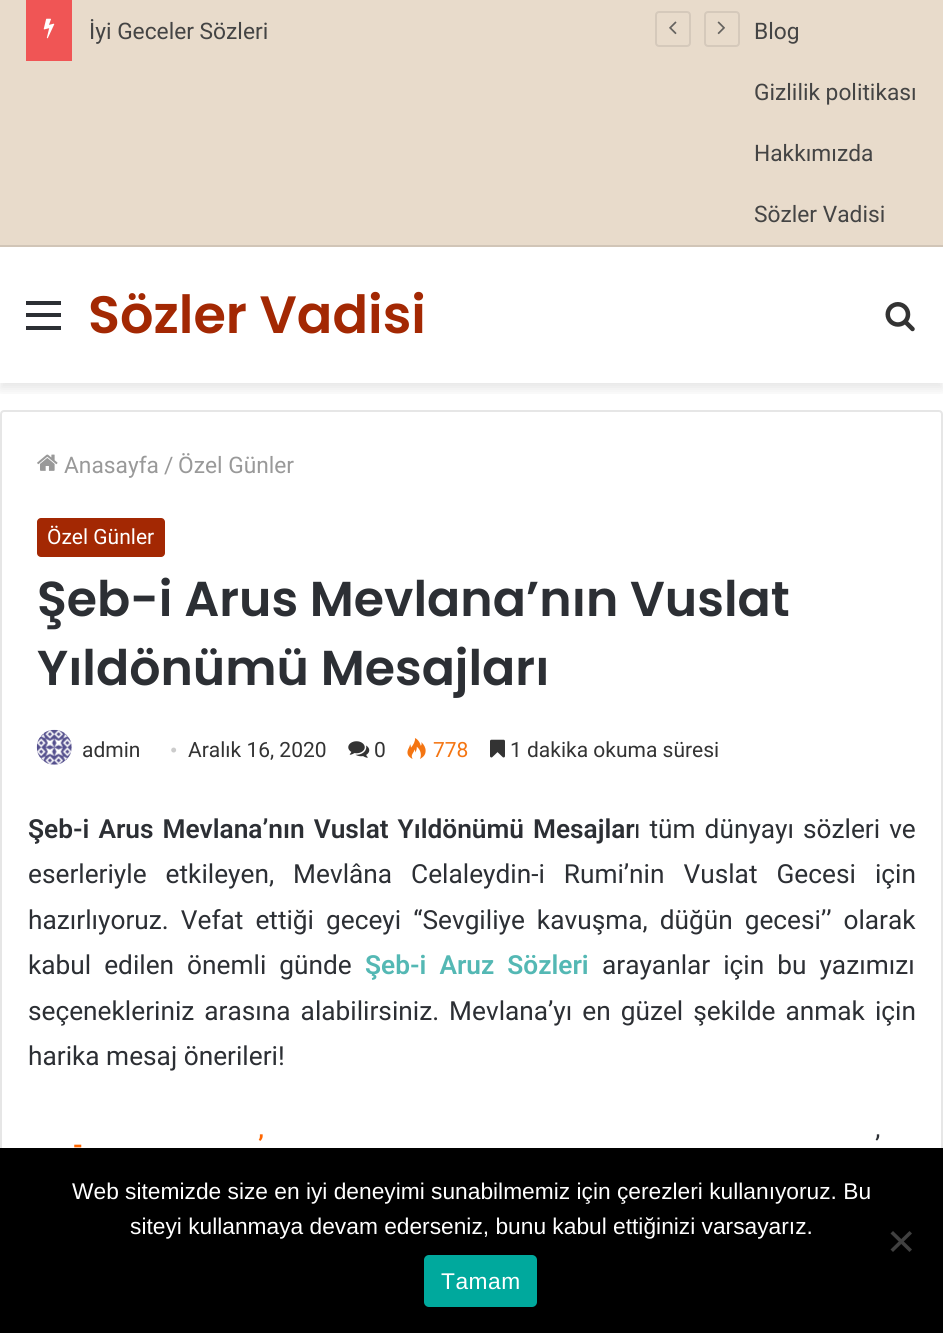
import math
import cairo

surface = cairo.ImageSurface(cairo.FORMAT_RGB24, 943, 1333)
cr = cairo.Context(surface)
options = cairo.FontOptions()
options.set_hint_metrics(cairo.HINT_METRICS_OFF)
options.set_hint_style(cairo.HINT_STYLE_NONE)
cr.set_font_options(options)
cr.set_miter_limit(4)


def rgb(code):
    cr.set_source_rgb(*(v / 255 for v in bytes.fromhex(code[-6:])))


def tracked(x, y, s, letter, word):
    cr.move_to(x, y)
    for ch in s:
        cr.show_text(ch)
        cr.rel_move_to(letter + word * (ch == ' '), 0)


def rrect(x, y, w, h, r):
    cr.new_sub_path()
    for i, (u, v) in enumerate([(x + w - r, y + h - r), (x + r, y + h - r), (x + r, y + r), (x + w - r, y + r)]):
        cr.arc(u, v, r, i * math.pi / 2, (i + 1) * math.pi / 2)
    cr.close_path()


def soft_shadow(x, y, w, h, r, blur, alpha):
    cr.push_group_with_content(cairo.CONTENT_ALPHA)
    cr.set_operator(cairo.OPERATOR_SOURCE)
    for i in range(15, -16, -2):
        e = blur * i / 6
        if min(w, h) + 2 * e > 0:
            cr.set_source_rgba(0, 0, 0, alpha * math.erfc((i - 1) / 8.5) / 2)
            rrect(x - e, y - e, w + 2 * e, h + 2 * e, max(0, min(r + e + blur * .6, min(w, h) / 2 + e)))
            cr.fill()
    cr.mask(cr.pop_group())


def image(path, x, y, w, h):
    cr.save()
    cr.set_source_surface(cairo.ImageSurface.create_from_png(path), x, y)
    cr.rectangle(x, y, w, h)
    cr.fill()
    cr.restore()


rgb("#ffffff")
cr.paint()
cr.save()
cr.rectangle(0, 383, 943, 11)
cr.clip()
rgb("#000000")
soft_shadow(0, 252, 943, 137, 0, 6, 0.1)
cr.restore()
for x, y, w, h, color in [
    (0, 0, 943, 245, "#e8dbcb"),
    (0, 245, 943, 2, "#d1c5b7"),
    (26, 0, 46, 61, "#f05555"),
]:
    rgb(color)
    cr.rectangle(x, y, w, h)
    cr.fill()
image("img/1.png", 43, 18, 12, 21)
rrect(656, 12, 34, 34, 3)
rgb("#d5c9bb")
cr.stroke()
image("img/2.png", 669, 21, 8, 14)
rrect(705, 12, 34, 34, 3)
cr.stroke()
image("img/3.png", 717, 21, 8, 14)
for x, y, w, h, color in [
    (26, 313, 35, 4, "#2c2f34"),
    (26, 301, 35, 4, "#2c2f34"),
    (26, 326, 35, 4, "#2c2f34"),
]:
    rgb(color)
    cr.rectangle(x, y, w, h)
    cr.fill()
image("img/4.png", 885, 302, 30, 30)
rrect(1, 411, 941, 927, 3)
rgb("#e6e6e6")
cr.stroke()
image("img/5.png", 37, 454, 21, 17)
rgb("#a32803")
rrect(37, 518, 128, 39, 4)
cr.fill()
image("img/6.png", 36, 729, 36, 36)
image("img/7.png", 348, 741, 22, 17)
image("img/8.png", 407, 738, 19, 21)
image("img/9.png", 490, 739, 15, 19)
rgb("#000000")
cr.rectangle(0, 1148, 943, 185)
cr.fill()
rgb("#404040")
cr.new_path()
cr.move_to(909.5, 1231)
cr.line_to(912, 1233.5)
cr.line_to(893, 1252)
cr.line_to(890.5, 1249.5)
cr.close_path()
cr.fill()
cr.new_path()
cr.move_to(890.5, 1233.5)
cr.line_to(893, 1231)
cr.line_to(912, 1249.5)
cr.line_to(909.5, 1252)
cr.close_path()
cr.fill()
rgb("#00a99d")
rrect(424, 1255, 113, 52, 5)
cr.fill()
cr.select_font_face("Roboto")
cr.set_font_size(22.75)
rgb("#444444")
for x, y, s in [
    (89, 39, "İyi Geceler Sözleri"),
    (754, 39, "Blog"),
    (754, 100, "Gizlilik politikası"),
    (754, 161, "Hakkımızda"),
    (754, 222, "Sözler Vadisi"),
]:
    cr.move_to(x, y)
    cr.show_text(s)
cr.select_font_face("Poppins SemiBold")
cr.set_font_size(52.5)
rgb("#a32803")
cr.move_to(88, 333)
cr.show_text("Sözler Vadisi")
cr.select_font_face("Roboto")
cr.set_font_size(22.75)
rgb("#999999")
for x, y, s in [
    (64, 473, "Anasayfa"),
    (164, 473, "/"),
    (178, 473, "Özel Günler"),
]:
    cr.move_to(x, y)
    cr.show_text(s)
cr.set_font_size(21)
rgb("#ffffff")
cr.move_to(47, 544)
cr.show_text("Özel Günler")
cr.select_font_face("Poppins SemiBold")
cr.set_font_size(49)
rgb("#2c2f34")
cr.move_to(37, 616)
cr.show_text("Şeb-i Arus Mevlana’nın Vuslat")
cr.move_to(37, 685)
cr.show_text("Yıldönümü Mesajları")
cr.select_font_face("Roboto")
cr.set_font_size(21)
rgb("#333333")
cr.move_to(82, 757)
cr.show_text("admin")
cr.select_font_face("Liberation Serif")
rgb("#cccccc")
cr.move_to(170, 757)
cr.show_text("•")
cr.select_font_face("Roboto")
rgb("#333333")
cr.move_to(188, 757)
cr.show_text("Aralık 16, 2020")
cr.move_to(374, 757)
cr.show_text("0")
rgb("#f47512")
cr.move_to(433, 757)
cr.show_text("778")
rgb("#333333")
cr.move_to(510, 757)
cr.show_text("1 dakika okuma süresi")
cr.select_font_face("Roboto SemiBold")
cr.set_font_size(26.25)
rgb("#2c2f34")
tracked(28, 838, "Şeb-i Arus Mevlana’nın Vuslat Yıldönümü Mesajlar", 0, 2.5)
cr.select_font_face("Roboto")
tracked(634, 838, "ı tüm dünyayı sözleri ve", 0, 2.5)
tracked(28, 883, "eserleriyle etkileyen, Mevlâna Celaleydin-i Rumi’nin Vuslat Gecesi için", 0, 12.5)
tracked(28, 929, "hazırlıyoruz. Vefat ettiği geceyi “Sevgiliye kavuşma, düğün gecesi’’ olarak", 0, 5.5)
tracked(28, 974, "kabul edilen önemli günde", 0, 6.5)
cr.select_font_face("Roboto SemiBold")
rgb("#54b8b4")
tracked(365, 974, "Şeb-i Aruz Sözleri", 0, 6.5)
cr.select_font_face("Roboto")
rgb("#2c2f34")
tracked(602, 974, "arayanlar için bu yazımızı", 0, 6.5)
tracked(28, 1020, "seçenekleriniz arasına alabilirsiniz. Mevlana’yı en güzel şekilde anmak için", 0, 3.5)
cr.move_to(28, 1065)
cr.show_text("harika mesaj önerileri!")
cr.select_font_face("Roboto SemiBold")
rgb("#ff6600")
cr.move_to(258, 1154)
cr.show_text("’")
cr.select_font_face("Roboto")
rgb("#2c2f34")
cr.move_to(875, 1154)
cr.show_text("’")
cr.select_font_face("Roboto SemiBold")
rgb("#ff6600")
cr.move_to(73, 1154)
cr.show_text("-")
cr.select_font_face("Liberation Sans")
cr.set_font_size(22.75)
rgb("#ffffff")
cr.move_to(72, 1199)
cr.show_text("Web sitemizde size en iyi deneyimi sunabilmemiz için çerezleri kullanıyoruz. Bu")
cr.move_to(130, 1234)
cr.show_text("siteyi kullanmaya devam ederseniz, bunu kabul ettiğinizi varsayarız.")
tracked(441, 1289, "Tamam", 0.5, 0)
surface.write_to_png("page.png")
